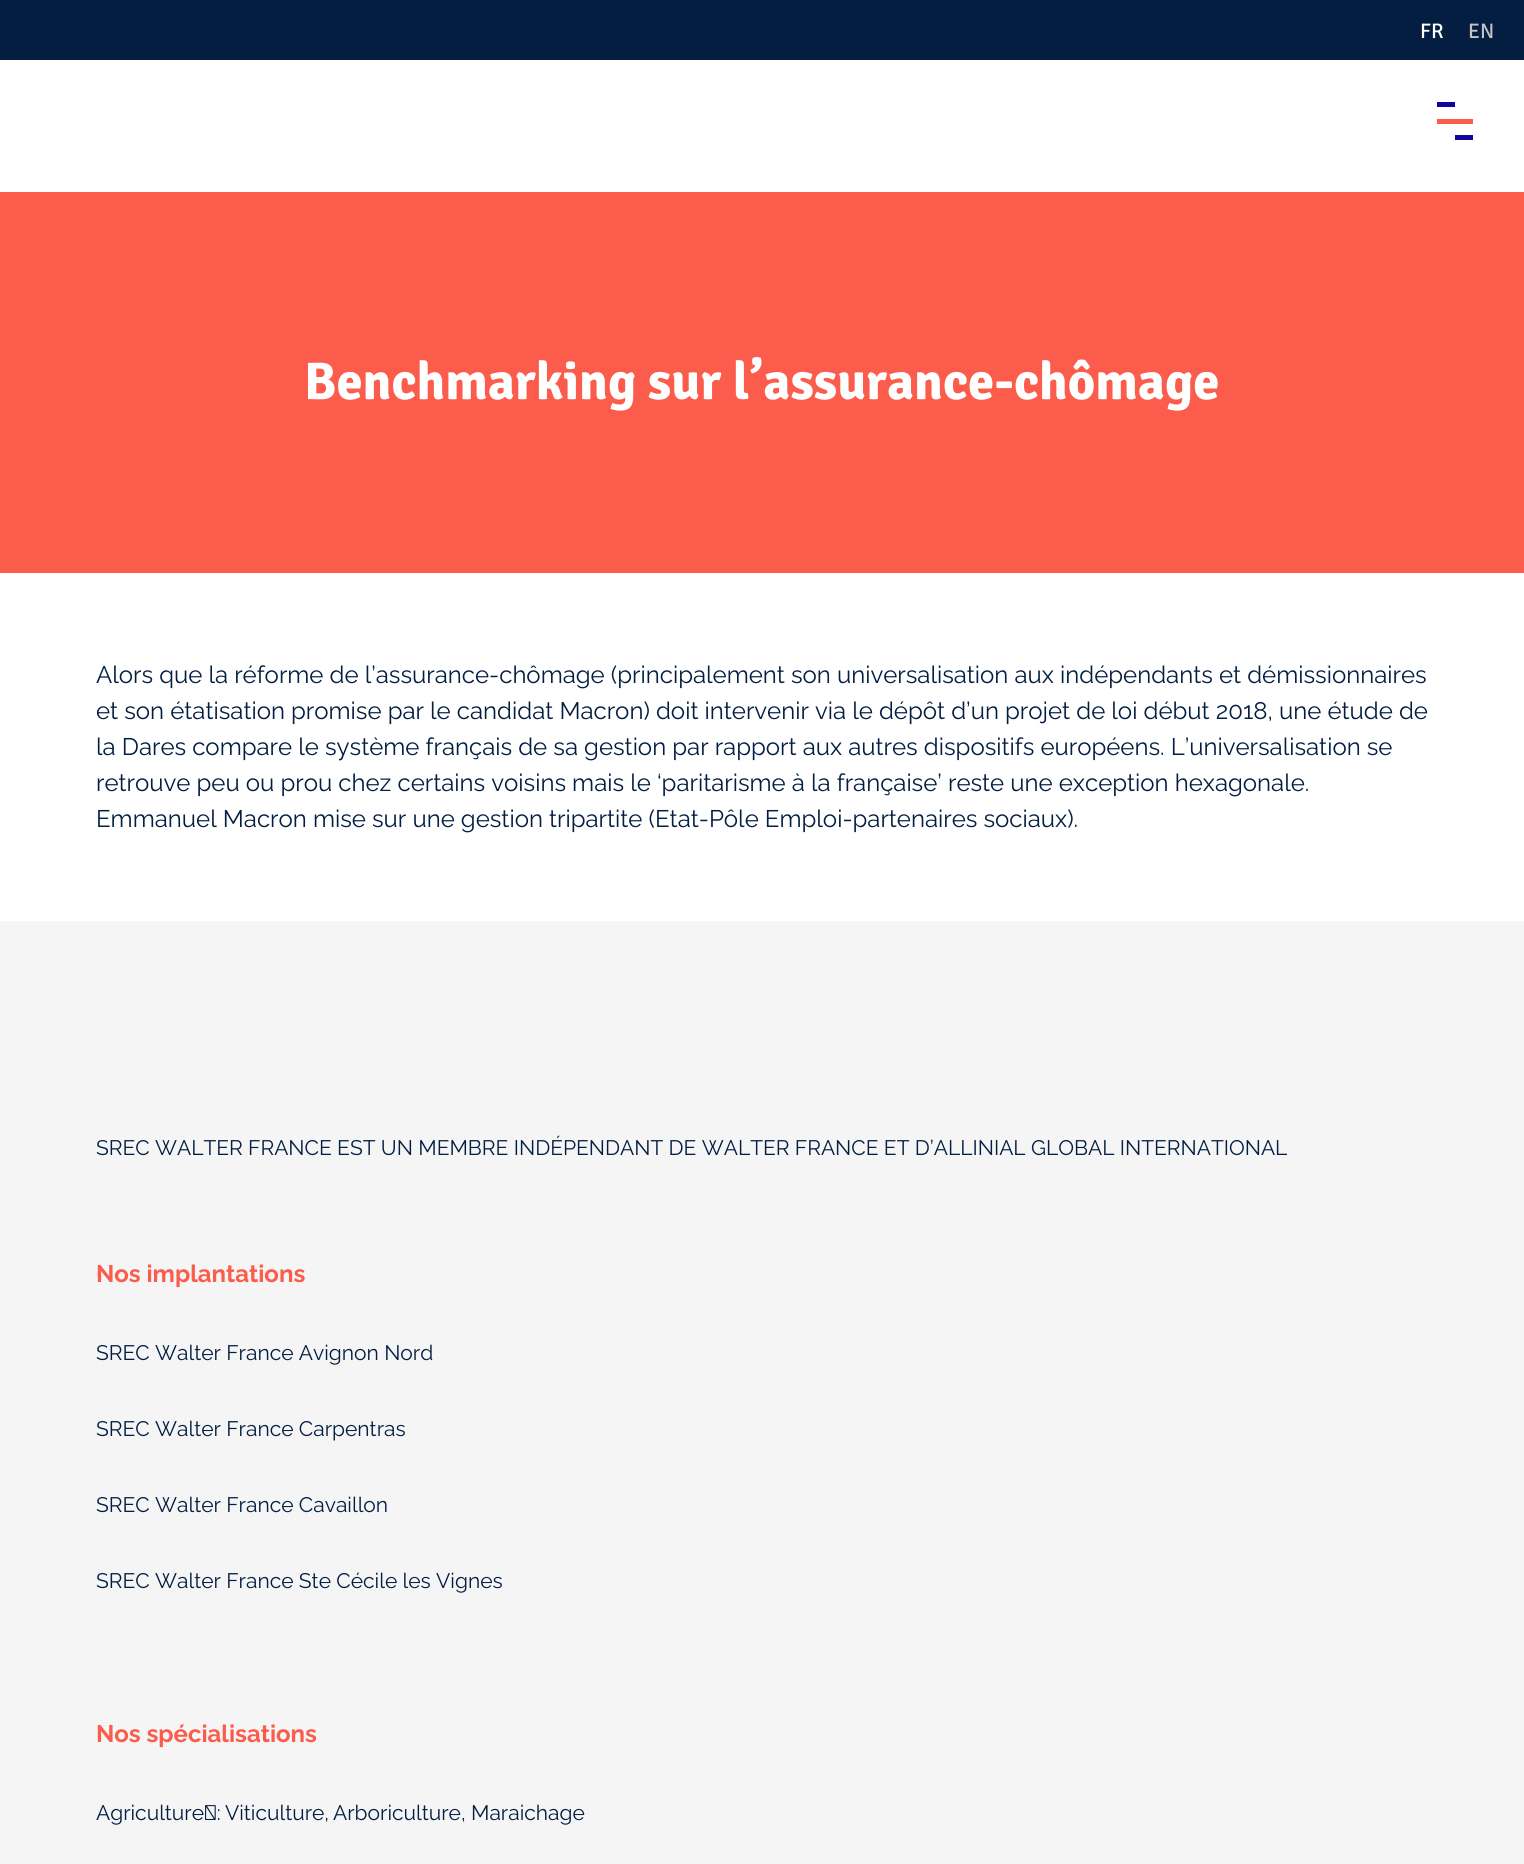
import math
import cairo

surface = cairo.ImageSurface(cairo.FORMAT_RGB24, 1524, 1864)
cr = cairo.Context(surface)
options = cairo.FontOptions()
options.set_hint_metrics(cairo.HINT_METRICS_OFF)
options.set_hint_style(cairo.HINT_STYLE_NONE)
cr.set_font_options(options)
cr.set_miter_limit(4)


def rgb(code):
    cr.set_source_rgb(*(v / 255 for v in bytes.fromhex(code[-6:])))


rgb("#ffffff")
cr.paint()
for x, y, w, h, color in [
    (0, 0, 1524, 60, "#041e42"),
    (1437, 102, 18, 5, "#10069f"),
    (1437, 119, 36, 5, "#fb5c4b"),
    (1455, 135, 18, 5, "#10069f"),
    (0, 192, 1524, 381, "#fb5c4b"),
    (0, 921, 1524, 943, "#f5f5f5"),
]:
    rgb(color)
    cr.rectangle(x, y, w, h)
    cr.fill()
cr.select_font_face("Signika")
cr.set_font_size(21)
rgb("#ffffff")
cr.move_to(1420, 38)
cr.show_text("FR")
rgb("#c4c4c4")
cr.move_to(1468, 38)
cr.show_text("EN")
cr.select_font_face("Signika", cairo.FONT_SLANT_NORMAL, cairo.FONT_WEIGHT_BOLD)
cr.set_font_size(52.75)
rgb("#ffffff")
cr.move_to(304, 399)
cr.show_text("Benchmarking sur l’assurance-chômage")
cr.select_font_face("Raleway")
cr.set_font_size(24)
rgb("#041e42")
for x, y, s in [
    (96, 683, "Alors que la réforme de l’assurance-chômage (principalement son universalisation aux indépendants et démissionnaires"),
    (96, 719, "et son étatisation promise par le candidat Macron) doit intervenir via le dépôt d’un projet de loi début 2018, une étude de"),
    (96, 755, "la Dares compare le système français de sa gestion par rapport aux autres dispositifs européens. L’universalisation se"),
    (96, 791, "retrouve peu ou prou chez certains voisins mais le ‘paritarisme à la française’ reste une exception hexagonale."),
    (96, 827, "Emmanuel Macron mise sur une gestion tripartite (Etat-Pôle Emploi-partenaires sociaux)."),
]:
    cr.move_to(x, y)
    cr.show_text(s)
cr.set_font_size(21)
cr.move_to(96, 1155)
cr.show_text("SREC WALTER FRANCE EST UN MEMBRE INDÉPENDANT DE WALTER FRANCE ET D’ALLINIAL GLOBAL INTERNATIONAL")
cr.select_font_face("Raleway", cairo.FONT_SLANT_NORMAL, cairo.FONT_WEIGHT_BOLD)
cr.set_font_size(24)
rgb("#fb5c4b")
cr.move_to(96, 1282)
cr.show_text("Nos implantations")
cr.select_font_face("Raleway")
cr.set_font_size(21)
rgb("#041e42")
for x, y, s in [
    (96, 1360, "SREC Walter France Avignon Nord"),
    (96, 1436, "SREC Walter France Carpentras"),
    (96, 1512, "SREC Walter France Cavaillon"),
    (96, 1588, "SREC Walter France Ste Cécile les Vignes"),
]:
    cr.move_to(x, y)
    cr.show_text(s)
cr.select_font_face("Raleway", cairo.FONT_SLANT_NORMAL, cairo.FONT_WEIGHT_BOLD)
cr.set_font_size(24)
rgb("#fb5c4b")
cr.move_to(96, 1742)
cr.show_text("Nos spécialisations")
cr.select_font_face("Raleway")
cr.set_font_size(21)
rgb("#041e42")
cr.move_to(96, 1820)
cr.show_text("Agriculture :")
cr.move_to(225, 1820)
cr.show_text("Viticulture,")
cr.move_to(333, 1820)
cr.show_text("Arboriculture, Maraichage")
surface.write_to_png("page.png")
